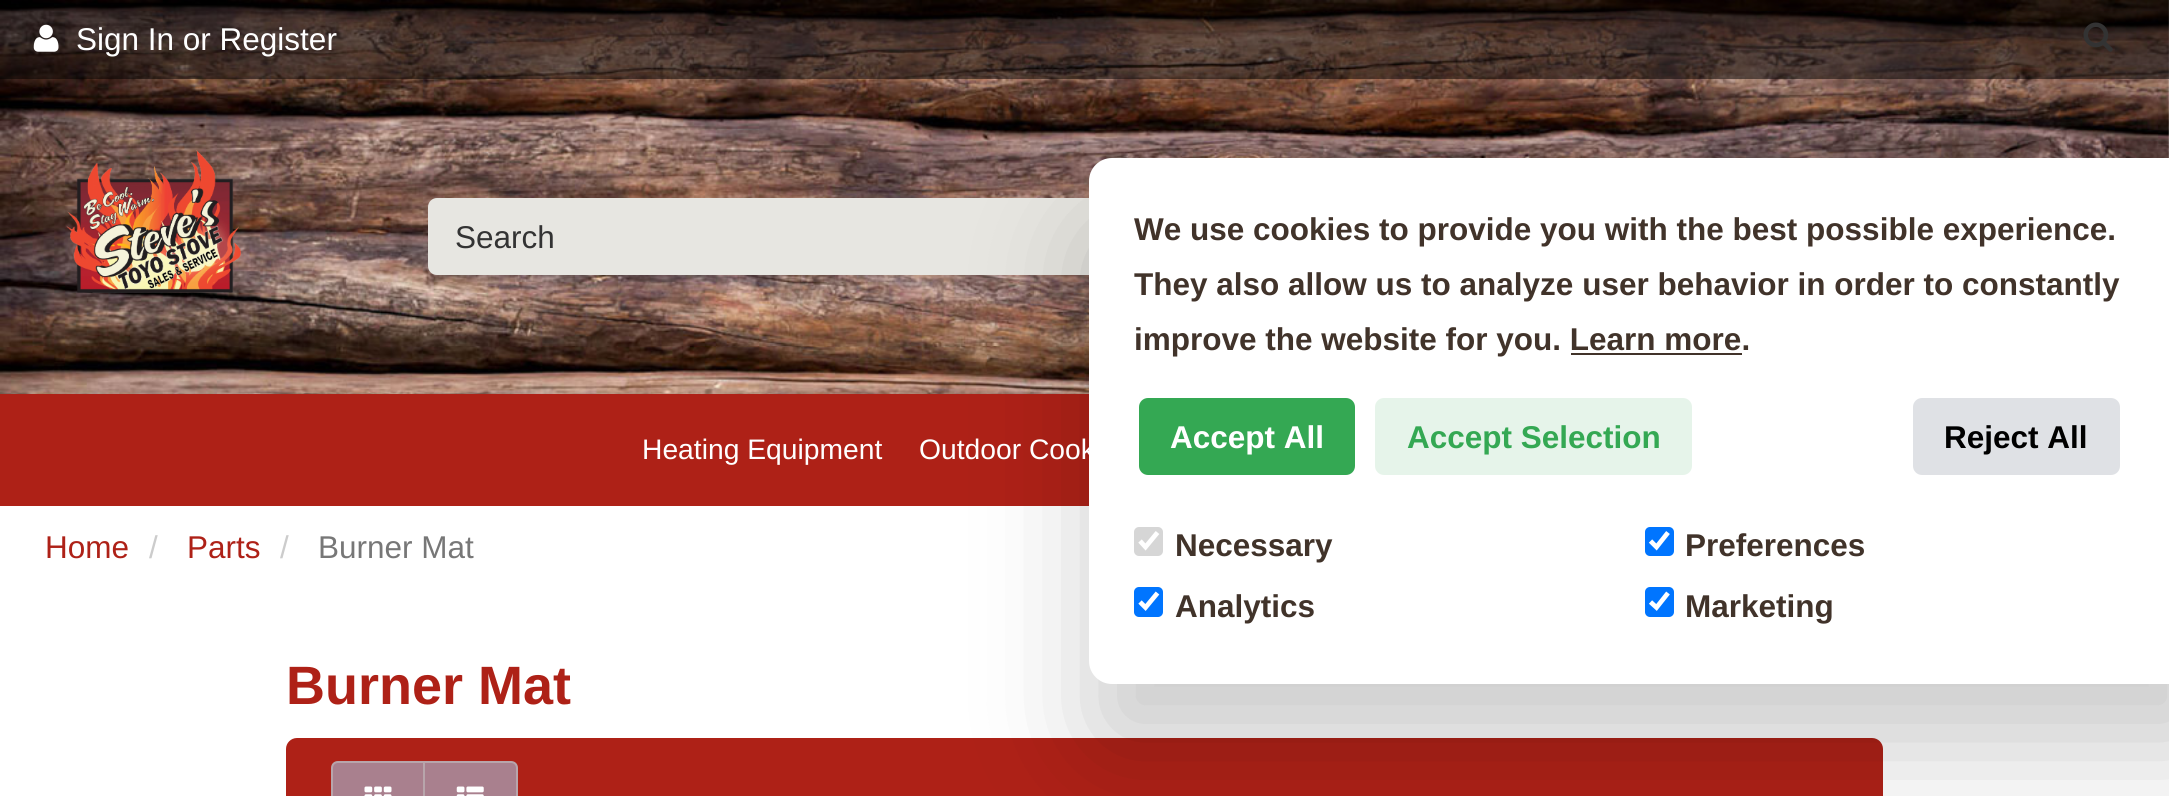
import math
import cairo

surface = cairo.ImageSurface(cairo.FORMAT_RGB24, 2169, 796)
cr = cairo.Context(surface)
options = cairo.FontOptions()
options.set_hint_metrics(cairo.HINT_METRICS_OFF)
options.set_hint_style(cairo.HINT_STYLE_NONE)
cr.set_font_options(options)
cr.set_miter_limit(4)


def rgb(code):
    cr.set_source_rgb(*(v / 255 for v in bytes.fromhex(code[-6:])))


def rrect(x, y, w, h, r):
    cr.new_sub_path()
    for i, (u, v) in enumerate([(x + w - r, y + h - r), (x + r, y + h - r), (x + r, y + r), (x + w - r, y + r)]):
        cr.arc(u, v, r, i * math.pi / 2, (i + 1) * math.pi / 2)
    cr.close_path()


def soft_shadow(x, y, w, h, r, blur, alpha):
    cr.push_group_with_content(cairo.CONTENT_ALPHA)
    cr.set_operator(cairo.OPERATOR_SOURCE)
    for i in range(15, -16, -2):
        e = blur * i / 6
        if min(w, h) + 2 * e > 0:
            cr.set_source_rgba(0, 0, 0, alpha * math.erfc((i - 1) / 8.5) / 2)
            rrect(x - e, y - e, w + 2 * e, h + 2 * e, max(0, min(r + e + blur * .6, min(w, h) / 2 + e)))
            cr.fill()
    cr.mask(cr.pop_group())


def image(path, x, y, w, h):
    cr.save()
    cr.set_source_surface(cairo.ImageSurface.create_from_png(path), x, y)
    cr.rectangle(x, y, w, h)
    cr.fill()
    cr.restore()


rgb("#ffffff")
cr.paint()
image("img/1.png", 0, 0, 2169, 394)
cr.set_source_rgba(0, 0, 0, 0.5)
cr.rectangle(0, 0, 2169, 79)
cr.fill()
image("img/2.png", 33, 24, 26, 28)
image("img/3.png", 66, 150, 175, 143)
image("img/4.png", 2083, 22, 30, 30)
rgb("#e7e6e1")
rrect(428, 198, 888, 77, 9)
cr.fill()
rgb("#ae2117")
cr.rectangle(0, 394, 1089, 112)
cr.fill()
rrect(286, 738, 1597, 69, 11)
cr.fill()
rgb("#a9808e")
cr.new_path()
cr.move_to(338, 762)
cr.line_to(424, 762)
cr.line_to(424, 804)
cr.line_to(338, 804)
cr.curve_to(334.5, 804, 332, 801.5, 332, 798)
cr.line_to(332, 768)
cr.curve_to(332, 764.5, 334.5, 762, 338, 762)
cr.close_path()
cr.fill_preserve()
rgb("#b8a5ab")
cr.stroke()
image("img/5.png", 364, 786, 28, 10)
rgb("#a9808e")
cr.new_path()
cr.move_to(424, 762)
cr.line_to(511, 762)
cr.curve_to(514.5, 762, 517, 764.5, 517, 768)
cr.line_to(517, 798)
cr.curve_to(517, 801.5, 514.5, 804, 511, 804)
cr.line_to(424, 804)
cr.close_path()
cr.fill_preserve()
rgb("#b8a5ab")
cr.stroke()
image("img/6.png", 456, 786, 28, 10)
rgb("#000000")
soft_shadow(1089, 225, 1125, 527, 23, 56, 0.2)
rgb("#ffffff")
rrect(1089, 158, 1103, 526, 23)
cr.fill()
rgb("#41332a")
cr.rectangle(1571, 353, 171, 2)
cr.fill()
rgb("#34a853")
rrect(1139, 398, 216, 77, 9)
cr.fill()
rgb("#e6f4ea")
rrect(1375, 398, 317, 77, 9)
cr.fill()
rgb("#dfe1e5")
rrect(1913, 398, 207, 77, 9)
cr.fill()
rgb("#d6d6d6")
rrect(1134, 527, 29, 29, 5)
cr.fill()
cr.new_path()
cr.move_to(1140, 541)
cr.line_to(1145.5, 547)
cr.line_to(1157.5, 532.5)
rgb("#ffffff")
cr.set_line_width(4.7)
cr.stroke()
rgb("#0075ff")
rrect(1645, 527, 29, 29, 5)
cr.fill()
cr.new_path()
cr.move_to(1650.5, 541)
cr.line_to(1656.5, 547)
cr.line_to(1668, 532.5)
rgb("#ffffff")
cr.stroke()
rgb("#0075ff")
rrect(1134, 587, 29, 30, 5)
cr.fill()
cr.new_path()
cr.move_to(1140, 602)
cr.line_to(1145.5, 607.5)
cr.line_to(1157.5, 593)
rgb("#ffffff")
cr.stroke()
rgb("#0075ff")
rrect(1645, 587, 29, 30, 5)
cr.fill()
cr.new_path()
cr.move_to(1650.5, 602)
cr.line_to(1656.5, 607.5)
cr.line_to(1668, 593)
rgb("#ffffff")
cr.stroke()
cr.select_font_face("Liberation Sans")
cr.set_font_size(31.5)
cr.move_to(76, 50)
cr.show_text("Sign In or Register")
rgb("#333333")
cr.move_to(455, 248)
cr.show_text("Search")
cr.set_font_size(28.25)
rgb("#ffffff")
cr.move_to(642, 459)
cr.show_text("Heating Equipment")
cr.move_to(919, 459)
cr.show_text("Outdoor Cook")
cr.set_font_size(31.5)
rgb("#ae2117")
cr.move_to(45, 558)
cr.show_text("Home")
rgb("#cccccc")
cr.move_to(149, 558)
cr.show_text("/")
rgb("#ae2117")
cr.move_to(187, 558)
cr.show_text("Parts")
rgb("#cccccc")
cr.move_to(280, 558)
cr.show_text("/")
rgb("#777777")
cr.move_to(318, 558)
cr.show_text("Burner Mat")
cr.select_font_face("Liberation Sans", cairo.FONT_SLANT_NORMAL, cairo.FONT_WEIGHT_BOLD)
cr.set_font_size(54)
rgb("#ae2117")
cr.move_to(286, 704)
cr.show_text("Burner Mat")
cr.set_font_size(31.5)
rgb("#41332a")
for x, y, s in [
    (1134, 240, "We use cookies to provide you with the best possible experience."),
    (1134, 295, "They also allow us to analyze user behavior in order to constantly"),
    (1134, 350, "improve the website for you. Learn more."),
]:
    cr.move_to(x, y)
    cr.show_text(s)
rgb("#ffffff")
cr.move_to(1170, 448)
cr.show_text("Accept All")
rgb("#34a853")
cr.move_to(1407, 448)
cr.show_text("Accept Selection")
rgb("#000000")
cr.move_to(1944, 448)
cr.show_text("Reject All")
rgb("#41332a")
for x, y, s in [
    (1175, 556, "Necessary"),
    (1685, 556, "Preferences"),
    (1175, 617, "Analytics"),
    (1685, 617, "Marketing"),
]:
    cr.move_to(x, y)
    cr.show_text(s)
surface.write_to_png("page.png")
